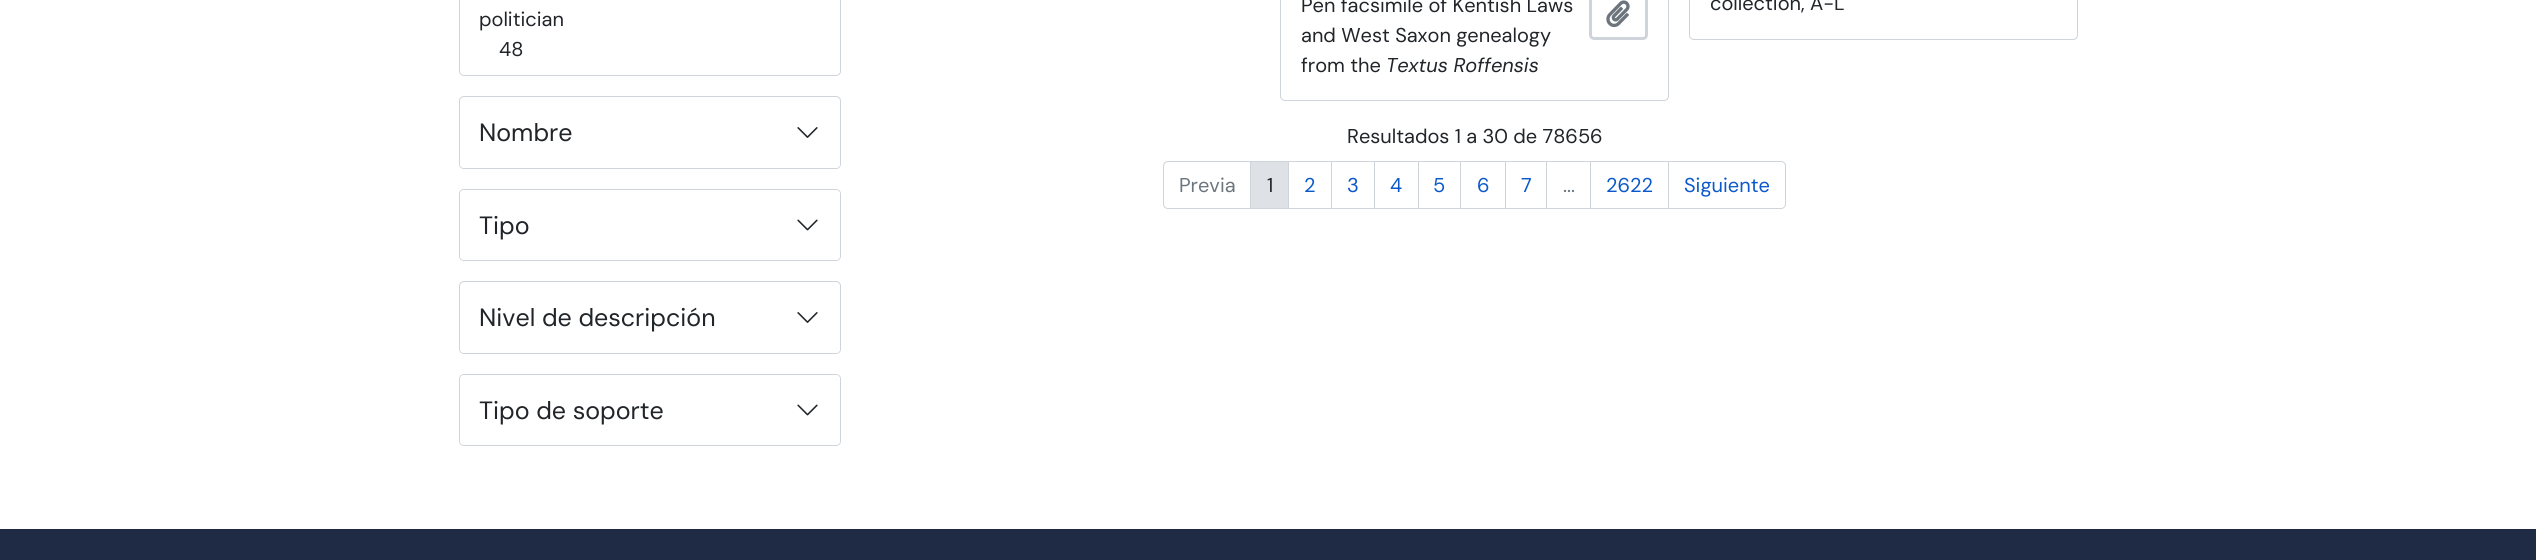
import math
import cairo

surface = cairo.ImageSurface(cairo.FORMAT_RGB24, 2536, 560)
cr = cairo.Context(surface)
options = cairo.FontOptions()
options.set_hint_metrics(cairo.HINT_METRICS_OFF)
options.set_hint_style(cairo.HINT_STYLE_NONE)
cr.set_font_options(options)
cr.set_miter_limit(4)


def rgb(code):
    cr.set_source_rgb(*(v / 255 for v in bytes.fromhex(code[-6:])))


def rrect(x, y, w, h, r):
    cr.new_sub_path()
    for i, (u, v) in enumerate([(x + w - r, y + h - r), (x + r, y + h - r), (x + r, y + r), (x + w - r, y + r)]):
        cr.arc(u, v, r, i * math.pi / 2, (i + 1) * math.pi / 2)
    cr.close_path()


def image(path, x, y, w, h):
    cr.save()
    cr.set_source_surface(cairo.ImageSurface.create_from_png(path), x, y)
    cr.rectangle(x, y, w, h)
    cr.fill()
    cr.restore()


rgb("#ffffff")
cr.paint()
rrect(459.5, -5.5, 381, 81, 4.5)
rgb("#ced4da")
cr.set_line_width(1)
cr.stroke()
rgb("#ffffff")
cr.new_path()
cr.move_to(460, -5)
cr.line_to(840, -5)
cr.line_to(840, 70)
cr.curve_to(840, 73, 838, 75, 835, 75)
cr.line_to(465, 75)
cr.curve_to(462, 75, 460, 73, 460, 70)
cr.close_path()
cr.fill()
rrect(459.5, 96.5, 381, 72, 4.5)
rgb("#ced4da")
cr.stroke()
rgb("#ffffff")
rrect(460, 98, 380, 70, 4)
cr.fill()
image("img/1.png", 797, 127, 21, 11)
rrect(459.5, 189.5, 381, 71, 4.5)
rgb("#ced4da")
cr.stroke()
rgb("#ffffff")
rrect(460, 190, 380, 70, 4)
cr.fill()
image("img/2.png", 797, 219, 21, 12)
rrect(459.5, 281.5, 381, 72, 4.5)
rgb("#ced4da")
cr.stroke()
rgb("#ffffff")
rrect(460, 283, 380, 70, 4)
cr.fill()
image("img/1.png", 797, 312, 21, 11)
rrect(459.5, 374.5, 381, 71, 4.5)
rgb("#ced4da")
cr.stroke()
rgb("#ffffff")
rrect(460, 375, 380, 70, 4)
cr.fill()
image("img/2.png", 797, 404, 21, 12)
rrect(1280.5, -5.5, 388, 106, 4.5)
rgb("#ced4da")
cr.stroke()
rrect(1590.5, -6.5, 56, 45, 3.5)
cr.set_line_width(3)
cr.stroke()
image("img/3.png", 1606, 0, 24, 28)
rrect(1689.5, -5.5, 388, 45, 4.5)
cr.set_line_width(1)
cr.stroke()
cr.new_path()
cr.move_to(1168, 161.5)
cr.line_to(1250.5, 161.5)
cr.line_to(1250.5, 208.5)
cr.line_to(1168, 208.5)
cr.curve_to(1165.5, 208.5, 1163.5, 206.5, 1163.5, 204)
cr.line_to(1163.5, 166)
cr.curve_to(1163.5, 163.5, 1165.5, 161.5, 1168, 161.5)
cr.close_path()
cr.stroke()
cr.rectangle(1288.5, 161.5, 44, 47)
cr.stroke()
rgb("#dee2e6")
cr.rectangle(1250.5, 161.5, 38, 47)
cr.fill_preserve()
rgb("#ced4da")
cr.stroke()
rgb("#ffffff")
cr.rectangle(1332, 162, 1, 46)
cr.fill()
cr.rectangle(1331.5, 161.5, 43, 47)
rgb("#ced4da")
cr.stroke()
cr.rectangle(1374.5, 161.5, 44, 47)
cr.stroke()
cr.rectangle(1418.5, 161.5, 42, 47)
cr.stroke()
cr.rectangle(1460.5, 161.5, 45, 47)
cr.stroke()
cr.rectangle(1505.5, 161.5, 42, 47)
cr.stroke()
rgb("#ffffff")
cr.rectangle(1547, 162, 1, 46)
cr.fill()
cr.rectangle(1546.5, 161.5, 44, 47)
rgb("#ced4da")
cr.stroke()
cr.rectangle(1590.5, 161.5, 78, 47)
cr.stroke()
rgb("#ffffff")
cr.new_path()
cr.move_to(1668.5, 161.5)
cr.line_to(1781, 161.5)
cr.curve_to(1783.5, 161.5, 1785.5, 163.5, 1785.5, 166)
cr.line_to(1785.5, 204)
cr.curve_to(1785.5, 206.5, 1783.5, 208.5, 1781, 208.5)
cr.line_to(1668.5, 208.5)
cr.close_path()
cr.fill_preserve()
rgb("#ced4da")
cr.stroke()
rgb("#1f2a44")
cr.rectangle(0, 529, 2536, 31)
cr.fill()
cr.select_font_face("DM Sans")
cr.set_font_size(20)
rgb("#212529")
cr.move_to(479, 26)
cr.show_text("politician")
cr.move_to(499, 56)
cr.show_text("48")
cr.set_font_size(25)
for x, y, s in [
    (479, 141, "Nombre"),
    (479, 234, "Tipo"),
    (479, 326, "Nivel de descripción"),
    (479, 419, "Tipo de soporte"),
]:
    cr.move_to(x, y)
    cr.show_text(s)
cr.set_font_size(20)
for x, y, s in [
    (1301, 12, "Pen facsimile of Kentish Laws"),
    (1301, 42, "and West Saxon genealogy"),
    (1301, 72, "from the"),
]:
    cr.move_to(x, y)
    cr.show_text(s)
cr.select_font_face("DM Sans", cairo.FONT_SLANT_ITALIC)
cr.move_to(1386, 72)
cr.show_text("Textus Roffensis")
cr.select_font_face("DM Sans")
cr.move_to(1710, 10)
cr.show_text("collection, A-L")
cr.move_to(1347, 143)
cr.show_text("Resultados 1 a 30 de 78656")
rgb("#6c757d")
cr.move_to(1179, 192)
cr.show_text("Previa")
rgb("#212529")
cr.move_to(1267, 192)
cr.show_text("1")
rgb("#0a58ca")
for x, y, s in [
    (1304, 192, "2"),
    (1347, 192, "3"),
    (1390, 192, "4"),
    (1433, 192, "5"),
    (1477, 192, "6"),
    (1521, 192, "7"),
]:
    cr.move_to(x, y)
    cr.show_text(s)
rgb("#6c757d")
cr.move_to(1563, 192)
cr.show_text("...")
rgb("#0a58ca")
cr.move_to(1606, 192)
cr.show_text("2622")
cr.move_to(1684, 192)
cr.show_text("Siguiente")
surface.write_to_png("page.png")
